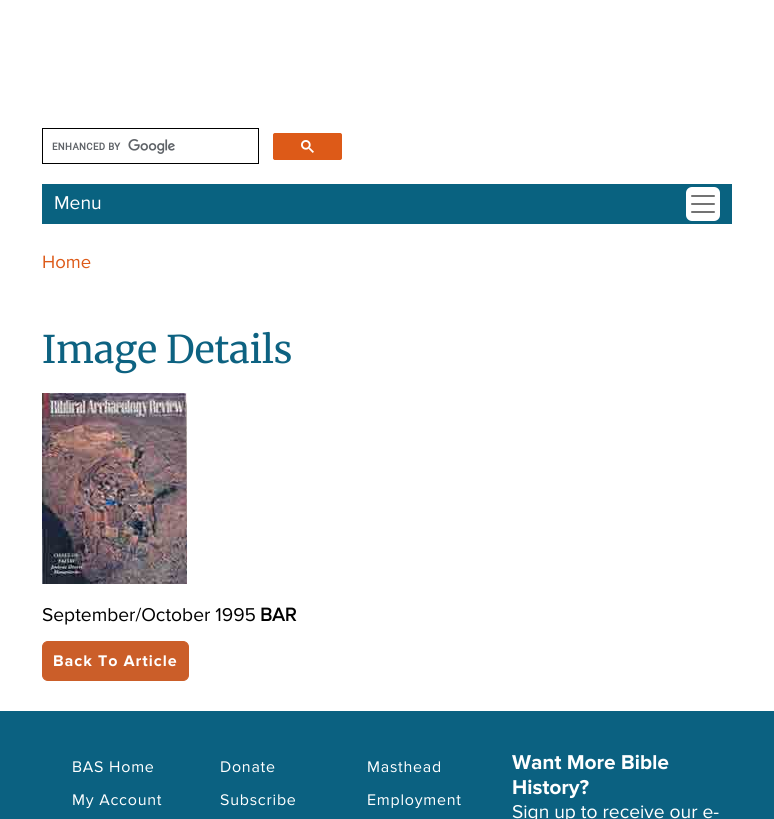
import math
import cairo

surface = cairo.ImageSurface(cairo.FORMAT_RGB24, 774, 819)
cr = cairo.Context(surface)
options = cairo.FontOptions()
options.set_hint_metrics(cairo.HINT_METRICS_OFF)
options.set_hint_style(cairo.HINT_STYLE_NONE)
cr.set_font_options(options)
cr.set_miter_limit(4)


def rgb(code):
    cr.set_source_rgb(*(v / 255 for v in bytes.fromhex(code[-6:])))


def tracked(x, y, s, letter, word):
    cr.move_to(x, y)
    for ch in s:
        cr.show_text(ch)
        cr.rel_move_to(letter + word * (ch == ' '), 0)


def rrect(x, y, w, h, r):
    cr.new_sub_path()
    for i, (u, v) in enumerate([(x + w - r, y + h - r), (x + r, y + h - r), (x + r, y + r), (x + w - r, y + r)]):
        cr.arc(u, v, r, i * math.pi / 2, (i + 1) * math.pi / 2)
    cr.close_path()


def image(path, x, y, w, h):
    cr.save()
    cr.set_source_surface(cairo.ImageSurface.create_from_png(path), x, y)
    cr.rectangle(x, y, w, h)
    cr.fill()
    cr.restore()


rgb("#ffffff")
cr.paint()
cr.rectangle(42.5, 128.5, 216, 35)
rgb("#000000")
cr.set_line_width(1)
cr.stroke()
image("img/1.png", 52, 139, 123, 15)
rgb("#dd5a18")
rrect(273.5, 133.5, 68, 26, 1.5)
cr.fill_preserve()
cr.stroke()
image("img/2.png", 301, 140, 13, 13)
rgb("#096280")
cr.rectangle(42, 184, 690, 40)
cr.fill()
rgb("#ffffff")
rrect(686, 187, 34, 34, 6)
cr.fill()
image("img/3.png", 691, 195, 24, 18)
image("img/4.png", 42, 393, 145, 191)
rgb("#cb5e29")
rrect(42.5, 641.5, 146, 39, 5.5)
cr.fill_preserve()
cr.stroke()
image("img/5.png", 54, 655, 123, 12)
rgb("#0b6181")
cr.rectangle(0, 711, 774, 108)
cr.fill()
image("img/6.png", 512, 754, 157, 16)
image("img/7.png", 513, 779, 76, 20)
cr.select_font_face("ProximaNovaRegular")
cr.set_font_size(19.25)
rgb("#ffffff")
cr.move_to(54, 209)
cr.show_text("Menu")
cr.set_font_size(18.5)
rgb("#dd5a18")
cr.move_to(42, 268)
cr.show_text("Home")
cr.select_font_face("Merriweather")
cr.set_font_size(38)
rgb("#0d6281")
cr.move_to(42, 363)
cr.show_text("Image Details")
cr.select_font_face("ProximaNovaRegular")
cr.set_font_size(19.25)
rgb("#000000")
cr.move_to(42, 621)
cr.show_text("September/October 1995")
cr.select_font_face("ProximaNovaRegular", cairo.FONT_SLANT_NORMAL, cairo.FONT_WEIGHT_BOLD)
cr.move_to(260, 621)
cr.show_text("BAR")
cr.select_font_face("ProximaNovaRegular")
cr.set_font_size(16)
rgb("#ffffff")
for x, y, s in [
    (72, 772, "BAS Home"),
    (220, 772, "Donate"),
    (367, 772, "Masthead"),
    (72, 805, "My Account"),
    (220, 805, "Subscribe"),
    (367, 805, "Employment"),
]:
    tracked(x, y, s, 0.75, 0)
cr.set_font_size(19.25)
cr.move_to(512, 818)
cr.show_text("Sign up to receive our e-")
surface.write_to_png("page.png")
